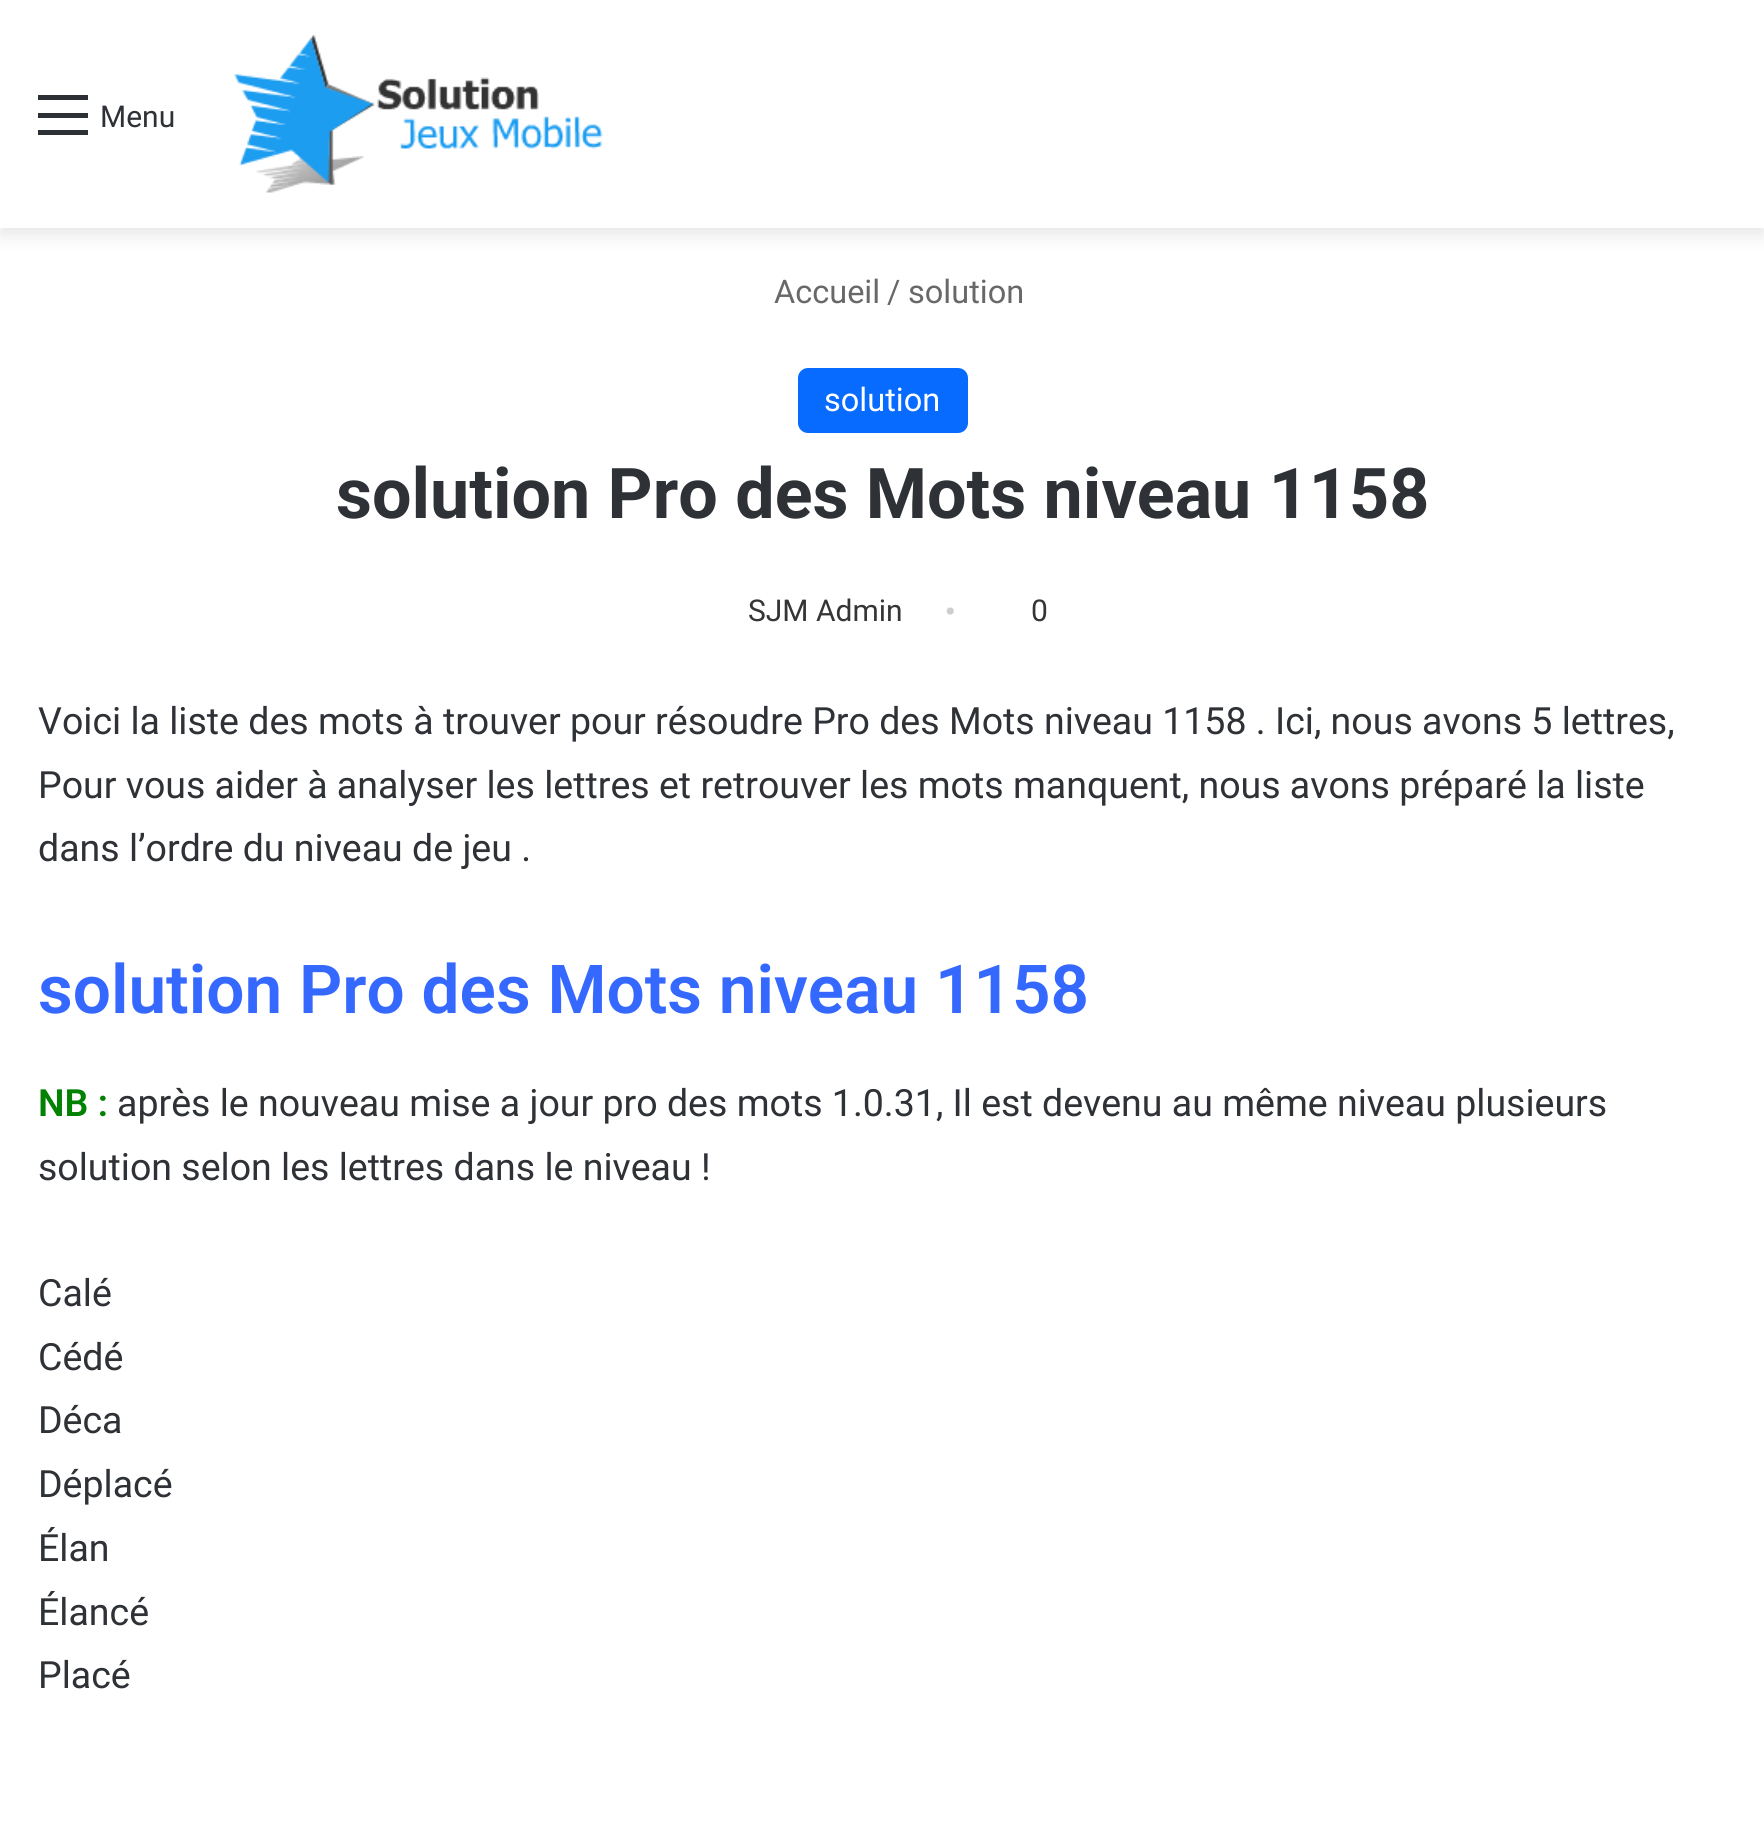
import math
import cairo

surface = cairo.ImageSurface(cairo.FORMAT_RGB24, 1764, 1842)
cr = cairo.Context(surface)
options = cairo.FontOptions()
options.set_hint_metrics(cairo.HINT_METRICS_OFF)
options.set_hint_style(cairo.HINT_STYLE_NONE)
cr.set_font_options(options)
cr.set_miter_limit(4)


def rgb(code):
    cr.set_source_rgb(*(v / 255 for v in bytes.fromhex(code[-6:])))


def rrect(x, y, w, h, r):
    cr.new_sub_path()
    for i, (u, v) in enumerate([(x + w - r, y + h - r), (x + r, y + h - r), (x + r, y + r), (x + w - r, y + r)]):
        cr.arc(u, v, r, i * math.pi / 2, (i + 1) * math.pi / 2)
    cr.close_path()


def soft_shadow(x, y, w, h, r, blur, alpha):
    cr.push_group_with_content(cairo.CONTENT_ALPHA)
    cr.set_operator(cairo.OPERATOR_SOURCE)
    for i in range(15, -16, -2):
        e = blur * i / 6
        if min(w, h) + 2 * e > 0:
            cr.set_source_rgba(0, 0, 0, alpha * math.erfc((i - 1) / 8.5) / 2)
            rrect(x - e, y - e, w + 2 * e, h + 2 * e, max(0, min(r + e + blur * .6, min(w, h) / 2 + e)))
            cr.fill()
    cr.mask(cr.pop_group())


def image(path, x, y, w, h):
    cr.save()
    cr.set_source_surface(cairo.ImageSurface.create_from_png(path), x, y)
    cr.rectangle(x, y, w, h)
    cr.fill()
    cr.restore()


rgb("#ffffff")
cr.paint()
rgb("#000000")
soft_shadow(0, 8, 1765, 227, 0, 9, 0.1)
for x, y, w, h, color in [
    (0, 0, 1764, 228, "#ffffff"),
    (38, 113, 50, 5, "#2c2f34"),
    (38, 95, 50, 5, "#2c2f34"),
    (38, 130, 50, 5, "#2c2f34"),
]:
    rgb(color)
    cr.rectangle(x, y, w, h)
    cr.fill()
image("img/1.png", 234, 35, 369, 158)
rgb("#086bff")
rrect(798, 368, 170, 65, 10)
cr.fill()
cr.select_font_face("Roboto")
cr.set_font_size(30)
rgb("#2e3136")
cr.move_to(100, 127)
cr.show_text("Menu")
cr.set_font_size(32.5)
rgb("#686868")
for x, y, s in [
    (774, 303, "Accueil"),
    (887, 303, "/"),
    (908, 303, "solution"),
]:
    cr.move_to(x, y)
    cr.show_text(s)
rgb("#ffffff")
cr.move_to(824, 411)
cr.show_text("solution")
cr.select_font_face("Roboto", cairo.FONT_SLANT_NORMAL, cairo.FONT_WEIGHT_BOLD)
cr.set_font_size(70)
rgb("#2e3136")
cr.move_to(336, 518)
cr.show_text("solution Pro des Mots niveau 1158")
cr.select_font_face("Roboto")
cr.set_font_size(30)
rgb("#353535")
cr.move_to(748, 621)
cr.show_text("SJM Admin")
cr.select_font_face("Liberation Serif")
rgb("#cdcdcd")
cr.move_to(945, 621)
cr.show_text("•")
cr.select_font_face("Roboto")
rgb("#353535")
cr.move_to(1031, 621)
cr.show_text("0")
cr.set_font_size(37.5)
rgb("#2e3136")
for x, y, s in [
    (38, 734, "Voici la liste des mots à trouver pour résoudre Pro des Mots niveau 1158 . Ici, nous avons 5 lettres,"),
    (38, 798, "Pour vous aider à analyser les lettres et retrouver les mots manquent, nous avons préparé la liste"),
    (38, 861, "dans l’ordre du niveau de jeu ."),
]:
    cr.move_to(x, y)
    cr.show_text(s)
cr.select_font_face("Roboto SemiBold")
cr.set_font_size(67.5)
rgb("#3568ff")
cr.move_to(38, 1013)
cr.show_text("solution Pro des Mots niveau 1158")
cr.set_font_size(37.5)
rgb("#038103")
cr.move_to(38, 1116)
cr.show_text("NB :")
cr.select_font_face("Roboto")
rgb("#2e3136")
for x, y, s in [
    (117, 1116, "après le nouveau mise a jour pro des mots 1.0.31, Il est devenu au même niveau plusieurs"),
    (38, 1180, "solution selon les lettres dans le niveau !"),
    (38, 1306, "Calé"),
    (38, 1370, "Cédé"),
    (38, 1433, "Déca"),
    (38, 1497, "Déplacé"),
    (38, 1561, "Élan"),
    (38, 1625, "Élancé"),
    (38, 1688, "Placé"),
]:
    cr.move_to(x, y)
    cr.show_text(s)
surface.write_to_png("page.png")
